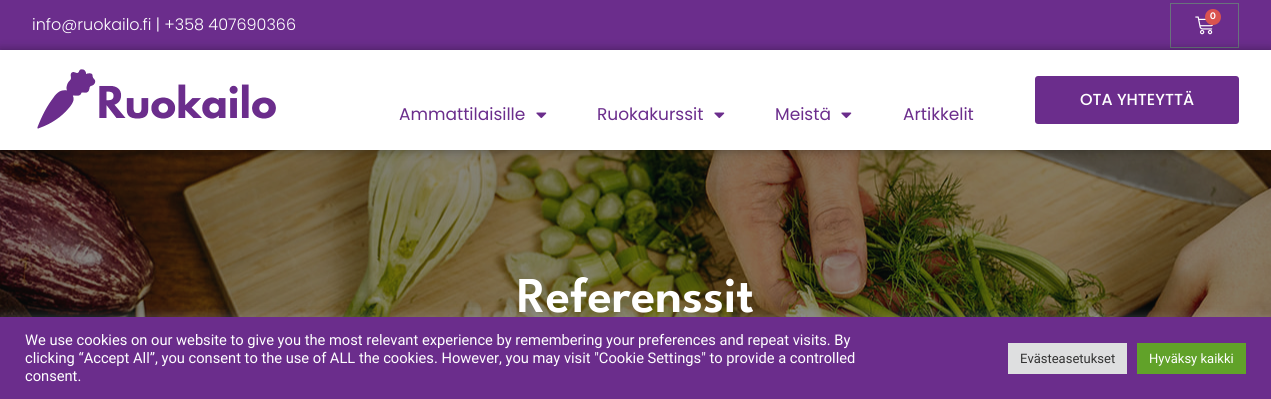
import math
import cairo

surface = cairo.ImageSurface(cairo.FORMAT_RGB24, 1271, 399)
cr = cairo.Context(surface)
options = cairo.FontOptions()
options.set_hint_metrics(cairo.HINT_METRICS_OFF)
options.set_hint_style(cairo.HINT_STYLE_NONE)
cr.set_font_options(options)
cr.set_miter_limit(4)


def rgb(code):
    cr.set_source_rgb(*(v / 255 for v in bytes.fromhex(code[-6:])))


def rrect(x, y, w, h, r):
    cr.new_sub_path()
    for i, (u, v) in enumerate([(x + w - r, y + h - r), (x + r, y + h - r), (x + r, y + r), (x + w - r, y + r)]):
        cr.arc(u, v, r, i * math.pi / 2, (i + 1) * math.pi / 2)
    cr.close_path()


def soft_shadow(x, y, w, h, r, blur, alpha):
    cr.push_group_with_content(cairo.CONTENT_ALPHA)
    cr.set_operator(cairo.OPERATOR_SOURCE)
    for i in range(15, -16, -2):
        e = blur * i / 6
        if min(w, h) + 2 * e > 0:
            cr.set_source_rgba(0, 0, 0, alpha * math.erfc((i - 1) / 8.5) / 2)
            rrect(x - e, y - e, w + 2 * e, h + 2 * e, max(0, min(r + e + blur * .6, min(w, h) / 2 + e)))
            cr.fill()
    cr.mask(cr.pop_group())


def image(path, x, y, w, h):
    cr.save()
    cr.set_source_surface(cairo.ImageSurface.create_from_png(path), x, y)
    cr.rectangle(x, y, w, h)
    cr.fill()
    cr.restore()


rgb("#ffffff")
cr.paint()
rgb("#6b2d8c")
cr.rectangle(0, 0, 1271, 50)
cr.fill()
cr.rectangle(1170.5, 3.5, 68, 44)
rgb("#69727d")
cr.set_line_width(1)
cr.stroke()
image("img/1.png", 1195, 16, 19, 19)
rgb("#d9534f")
cr.arc(1213, 17, 8, 0, 2 * math.pi)
cr.fill()
image("img/4.png", 0, 150, 1271, 167)
cr.save()
cr.set_fill_rule(cairo.FILL_RULE_EVEN_ODD)
cr.new_path()
cr.move_to(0, 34)
cr.line_to(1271, 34)
cr.line_to(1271, 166)
cr.line_to(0, 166)
cr.close_path()
cr.move_to(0, 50)
cr.line_to(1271, 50)
cr.line_to(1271, 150)
cr.line_to(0, 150)
cr.close_path()
cr.clip()
rgb("#000000")
soft_shadow(0, 50, 1271, 100, 0, 5, 0.38)
cr.restore()
image("img/2.png", 37, 69, 239, 60)
rgb("#6b2d8c")
rrect(1035, 76, 204, 48, 3)
cr.fill()
image("img/3.png", 536, 112, 11, 7)
image("img/3.png", 714, 112, 11, 7)
image("img/3.png", 841, 112, 11, 7)
rgb("#acabab")
soft_shadow(0, 316, 1271, 82, 0, 5, 0.3)
for x, y, w, h, color in [
    (0, 317, 1271, 82, "#6b2d8c"),
    (1008, 343, 119, 31, "#dedfe0"),
    (1137, 343, 109, 31, "#61a229"),
]:
    rgb(color)
    cr.rectangle(x, y, w, h)
    cr.fill()
cr.select_font_face("League Spartan SemiBold")
cr.set_font_size(10)
rgb("#ffffff")
cr.move_to(1210, 19)
cr.show_text("0")
cr.select_font_face("Poppins Light")
cr.set_font_size(16)
cr.move_to(32, 30)
cr.show_text("info@ruokailo.fi | +358 407690366")
cr.select_font_face("Poppins Medium")
cr.move_to(1080, 105)
cr.show_text("OTA YHTEYTTÄ")
cr.select_font_face("Poppins")
cr.set_font_size(17)
rgb("#6b2d8c")
for x, y, s in [
    (399, 120, "Ammattilaisille"),
    (597, 120, "Ruokakurssit"),
    (775, 120, "Meistä"),
    (903, 120, "Artikkelit"),
]:
    cr.move_to(x, y)
    cr.show_text(s)
cr.select_font_face("League Spartan SemiBold")
cr.set_font_size(50)
rgb("#ffffff")
cr.move_to(517, 312)
cr.show_text("Referenssit")
cr.select_font_face("Roboto")
cr.set_font_size(14.67)
for x, y, s in [
    (25, 345, "We use cookies on our website to give you the most relevant experience by remembering your preferences and repeat visits. By"),
    (25, 363, "clicking “Accept All”, you consent to the use of ALL the cookies. However, you may visit \"Cookie Settings\" to provide a controlled"),
    (25, 381, "consent."),
]:
    cr.move_to(x, y)
    cr.show_text(s)
cr.set_font_size(13)
rgb("#333333")
cr.move_to(1020, 363)
cr.show_text("Evästeasetukset")
rgb("#ffffff")
cr.move_to(1149, 363)
cr.show_text("Hyväksy kaikki")
surface.write_to_png("page.png")
